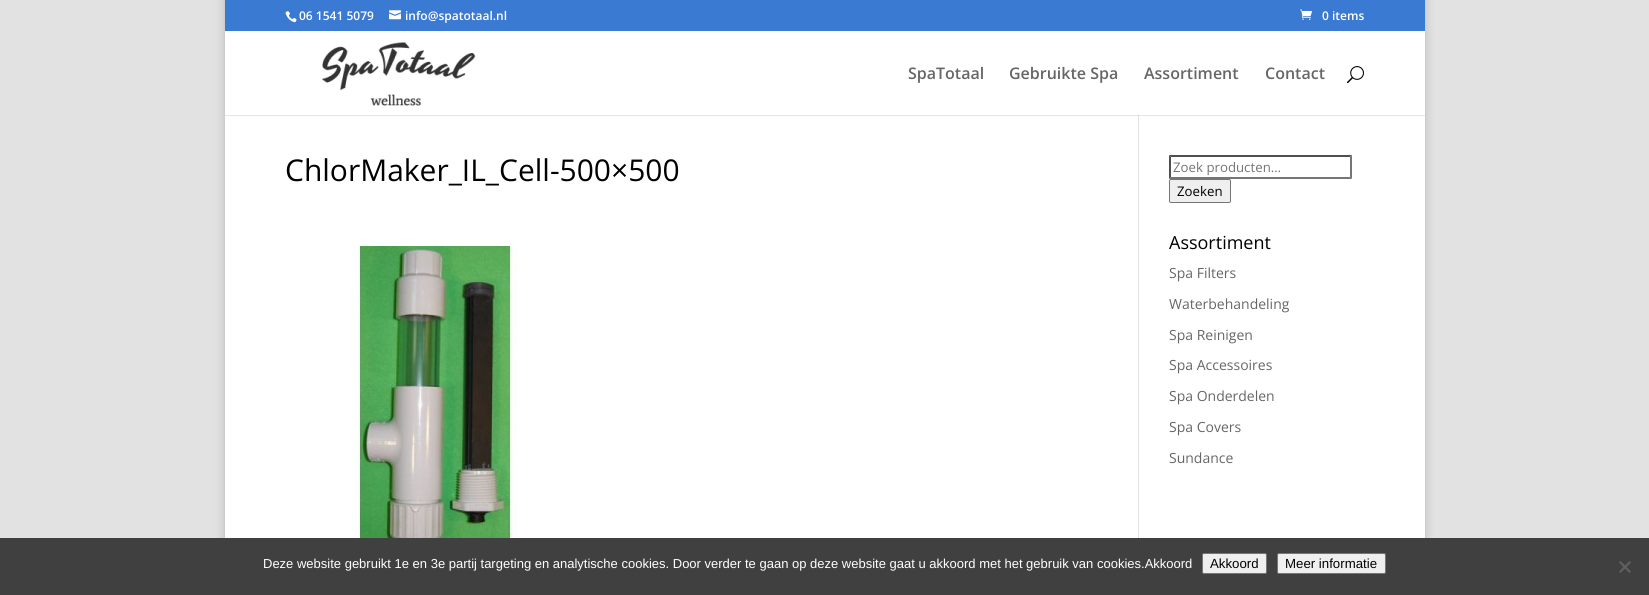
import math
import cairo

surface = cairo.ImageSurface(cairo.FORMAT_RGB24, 1649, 595)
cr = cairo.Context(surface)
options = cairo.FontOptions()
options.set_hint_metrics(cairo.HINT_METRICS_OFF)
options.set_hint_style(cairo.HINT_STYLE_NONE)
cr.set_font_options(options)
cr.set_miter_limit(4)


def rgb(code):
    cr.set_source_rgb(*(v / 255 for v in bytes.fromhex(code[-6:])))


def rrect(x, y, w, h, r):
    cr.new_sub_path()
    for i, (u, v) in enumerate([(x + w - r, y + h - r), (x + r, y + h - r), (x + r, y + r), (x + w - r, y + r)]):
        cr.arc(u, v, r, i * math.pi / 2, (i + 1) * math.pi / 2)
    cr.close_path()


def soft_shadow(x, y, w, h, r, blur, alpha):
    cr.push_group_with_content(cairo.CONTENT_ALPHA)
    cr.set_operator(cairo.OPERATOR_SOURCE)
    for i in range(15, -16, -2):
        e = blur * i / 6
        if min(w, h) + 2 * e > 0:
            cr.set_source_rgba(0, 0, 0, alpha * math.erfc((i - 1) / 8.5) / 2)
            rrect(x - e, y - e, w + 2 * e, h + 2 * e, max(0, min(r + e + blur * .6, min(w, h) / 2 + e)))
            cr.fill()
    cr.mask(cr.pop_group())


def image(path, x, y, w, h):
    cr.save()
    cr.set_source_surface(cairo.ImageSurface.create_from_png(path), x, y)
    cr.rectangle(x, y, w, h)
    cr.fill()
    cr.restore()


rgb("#e2e2e2")
cr.paint()
rgb("#000000")
soft_shadow(225, -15, 1200, 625, 0, 5, 0.2)
rgb("#3b7ad2")
cr.rectangle(225, 0, 1200, 31)
cr.fill()
image("img/1.png", 285, 11, 12, 12)
image("img/2.png", 389, 10, 12, 10)
image("img/3.png", 1300, 9, 12, 11)
rgb("#ffffff")
cr.rectangle(225, 31, 1200, 84)
cr.fill()
image("img/4.png", 322, 42, 154, 64)
image("img/5.png", 1347, 66, 17, 18)
for x, y, w, h, color in [
    (225, 116, 1200, 422, "#ffffff"),
    (225, 115, 1200, 1, "#e6e6e6"),
    (1138, 116, 1, 422, "#e2e2e2"),
    (1138, 115, 1, 1, "#cbcbcb"),
]:
    rgb(color)
    cr.rectangle(x, y, w, h)
    cr.fill()
image("img/6.png", 353, 246, 164, 292)
rgb("#4f4f4f")
cr.new_path()
cr.move_to(1169, 155)
cr.line_to(1352, 155)
cr.line_to(1350, 157)
cr.line_to(1171, 157)
cr.close_path()
cr.fill()
rgb("#767676")
cr.new_path()
cr.move_to(1352, 155)
cr.line_to(1352, 179)
cr.line_to(1350, 177)
cr.line_to(1350, 157)
cr.close_path()
cr.fill()
cr.new_path()
cr.move_to(1352, 179)
cr.line_to(1169, 179)
cr.line_to(1171, 177)
cr.line_to(1350, 177)
cr.close_path()
cr.fill()
rgb("#4f4f4f")
cr.new_path()
cr.move_to(1169, 179)
cr.line_to(1169, 155)
cr.line_to(1171, 157)
cr.line_to(1171, 177)
cr.close_path()
cr.fill()
rgb("#efefef")
rrect(1169.5, 179.5, 61, 23, 1.5)
cr.fill_preserve()
rgb("#767676")
cr.set_line_width(1)
cr.stroke()
rgb("#404040")
cr.rectangle(0, 538, 1649, 57)
cr.fill()
rgb("#efefef")
rrect(1202.5, 553.5, 64, 20, 1.5)
cr.fill_preserve()
rgb("#767676")
cr.stroke()
rgb("#efefef")
rrect(1277.5, 553.5, 108, 20, 1.5)
cr.fill_preserve()
rgb("#767676")
cr.stroke()
rgb("#606060")
cr.new_path()
cr.move_to(1629.5, 561)
cr.line_to(1631, 562.5)
cr.line_to(1620.5, 573)
cr.line_to(1619, 571.5)
cr.close_path()
cr.fill()
cr.new_path()
cr.move_to(1619, 562.5)
cr.line_to(1620.5, 561)
cr.line_to(1631, 571.5)
cr.line_to(1629.5, 573)
cr.close_path()
cr.fill()
cr.select_font_face("Open Sans SemiBold")
cr.set_font_size(12)
rgb("#ffffff")
for x, y, s in [
    (299, 20, "06 1541 5079"),
    (405, 20, "info@spatotaal.nl"),
    (1322, 20, "0 items"),
]:
    cr.move_to(x, y)
    cr.show_text(s)
cr.set_font_size(16)
rgb("#666666")
for x, y, s in [
    (908, 79, "SpaTotaal"),
    (1009, 79, "Gebruikte Spa"),
    (1144, 79, "Assortiment"),
    (1265, 79, "Contact"),
]:
    cr.move_to(x, y)
    cr.show_text(s)
cr.select_font_face("Open Sans")
cr.set_font_size(30)
rgb("#000000")
cr.move_to(285, 181)
cr.show_text("ChlorMaker_IL_Cell-500×500")
cr.set_font_size(13.25)
rgb("#757575")
cr.move_to(1173, 172)
cr.show_text("Zoek producten…")
rgb("#000000")
cr.move_to(1177, 196)
cr.show_text("Zoeken")
cr.set_font_size(18)
cr.move_to(1169, 249)
cr.show_text("Assortiment")
cr.set_font_size(14)
rgb("#666666")
for x, y, s in [
    (1169, 278, "Spa Filters"),
    (1169, 309, "Waterbehandeling"),
    (1169, 340, "Spa Reinigen"),
    (1169, 370, "Spa Accessoires"),
    (1169, 401, "Spa Onderdelen"),
    (1169, 432, "Spa Covers"),
    (1169, 463, "Sundance"),
]:
    cr.move_to(x, y)
    cr.show_text(s)
cr.select_font_face("Liberation Sans")
cr.set_font_size(13)
rgb("#ffffff")
cr.move_to(263, 568)
cr.show_text("Deze website gebruikt 1e en 3e partij targeting en analytische cookies. Door verder te gaan op deze website gaat u akkoord met het gebruik van cookies.Akkoord")
cr.set_font_size(13.25)
rgb("#000000")
cr.move_to(1210, 568)
cr.show_text("Akkoord")
cr.move_to(1285, 568)
cr.show_text("Meer informatie")
surface.write_to_png("page.png")
